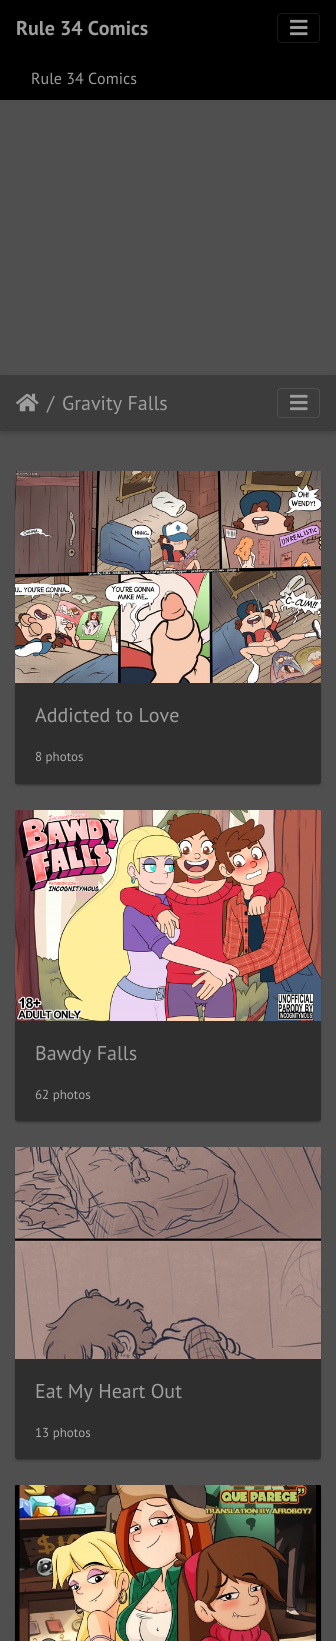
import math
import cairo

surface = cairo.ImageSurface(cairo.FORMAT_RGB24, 336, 1641)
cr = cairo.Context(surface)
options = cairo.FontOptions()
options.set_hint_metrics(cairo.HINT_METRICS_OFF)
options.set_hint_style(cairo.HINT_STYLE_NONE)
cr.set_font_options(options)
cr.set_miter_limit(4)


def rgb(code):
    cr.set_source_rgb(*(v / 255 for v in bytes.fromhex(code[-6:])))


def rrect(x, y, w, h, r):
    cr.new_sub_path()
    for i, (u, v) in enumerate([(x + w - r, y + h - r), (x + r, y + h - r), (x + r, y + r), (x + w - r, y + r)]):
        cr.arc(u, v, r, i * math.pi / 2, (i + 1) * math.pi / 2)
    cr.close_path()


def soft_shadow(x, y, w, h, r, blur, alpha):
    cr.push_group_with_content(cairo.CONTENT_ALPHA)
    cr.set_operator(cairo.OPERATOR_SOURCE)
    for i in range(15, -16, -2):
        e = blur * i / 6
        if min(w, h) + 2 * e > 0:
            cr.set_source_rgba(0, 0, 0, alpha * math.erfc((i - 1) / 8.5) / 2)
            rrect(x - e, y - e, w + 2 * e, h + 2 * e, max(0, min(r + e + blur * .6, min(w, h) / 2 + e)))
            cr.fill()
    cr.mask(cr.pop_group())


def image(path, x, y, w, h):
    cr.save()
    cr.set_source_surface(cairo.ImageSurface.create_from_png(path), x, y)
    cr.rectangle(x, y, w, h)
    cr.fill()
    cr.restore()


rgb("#4f4f4f")
cr.paint()
rgb("#000000")
cr.rectangle(0, 0, 336, 100)
cr.fill()
rrect(277.5, 13.5, 42, 29, 3.5)
rgb("#1a1a1a")
cr.set_line_width(1)
cr.stroke()
image("img/1.png", 290, 19, 18, 17)
rgb("#000000")
soft_shadow(1, 379, 334, 54, 0, 2.5, 0.2)
rgb("#3c3c3c")
cr.rectangle(0, 375, 336, 56)
cr.fill()
image("img/2.png", 16, 393, 23, 19)
rrect(277.5, 388.5, 42, 29, 3.5)
rgb("#505050")
cr.stroke()
image("img/3.png", 290, 394, 18, 17)
rgb("#000000")
soft_shadow(17, 476, 302, 309, 0, 0.5, 0.2)
soft_shadow(15, 473, 306, 313, 2, 1, 0.14)
rgb("#2e2e2e")
rrect(15, 471, 306, 313, 2)
cr.fill()
image("img/4.png", 15, 471, 306, 212)
rgb("#000000")
soft_shadow(17, 815, 302, 307, 0, 0.5, 0.2)
soft_shadow(15, 812, 306, 311, 2, 1, 0.14)
rgb("#2e2e2e")
rrect(15, 810, 306, 311, 2)
cr.fill()
image("img/5.png", 15, 810, 306, 211)
rgb("#000000")
soft_shadow(17, 1152, 302, 308, 0, 0.5, 0.2)
soft_shadow(15, 1149, 306, 312, 2, 1, 0.14)
rgb("#2e2e2e")
rrect(15, 1147, 306, 312, 2)
cr.fill()
image("img/6.png", 15, 1147, 306, 212)
rgb("#000000")
soft_shadow(15, 1487, 306, 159, 2, 1, 0.14)
image("img/7.png", 15, 1485, 306, 156)
cr.select_font_face("PT Sans", cairo.FONT_SLANT_NORMAL, cairo.FONT_WEIGHT_BOLD)
cr.set_font_size(20)
rgb("#9e9e9e")
cr.move_to(16, 35)
cr.show_text("Rule 34 Comics")
cr.select_font_face("PT Sans")
cr.set_font_size(16)
cr.move_to(31, 84)
cr.show_text("Rule 34 Comics")
cr.set_font_size(20)
for x, y, s in [
    (47, 410, "/"),
    (62, 410, "Gravity Falls"),
    (35, 722, "Addicted to Love"),
]:
    cr.move_to(x, y)
    cr.show_text(s)
cr.set_font_size(13)
rgb("#a9a9a9")
cr.move_to(35, 761)
cr.show_text("8 photos")
cr.set_font_size(20)
rgb("#9e9e9e")
cr.move_to(35, 1060)
cr.show_text("Bawdy Falls")
cr.set_font_size(13)
rgb("#a9a9a9")
cr.move_to(35, 1099)
cr.show_text("62 photos")
cr.set_font_size(20)
rgb("#9e9e9e")
cr.move_to(35, 1398)
cr.show_text("Eat My Heart Out")
cr.set_font_size(13)
rgb("#a9a9a9")
cr.move_to(35, 1437)
cr.show_text("13 photos")
surface.write_to_png("page.png")
